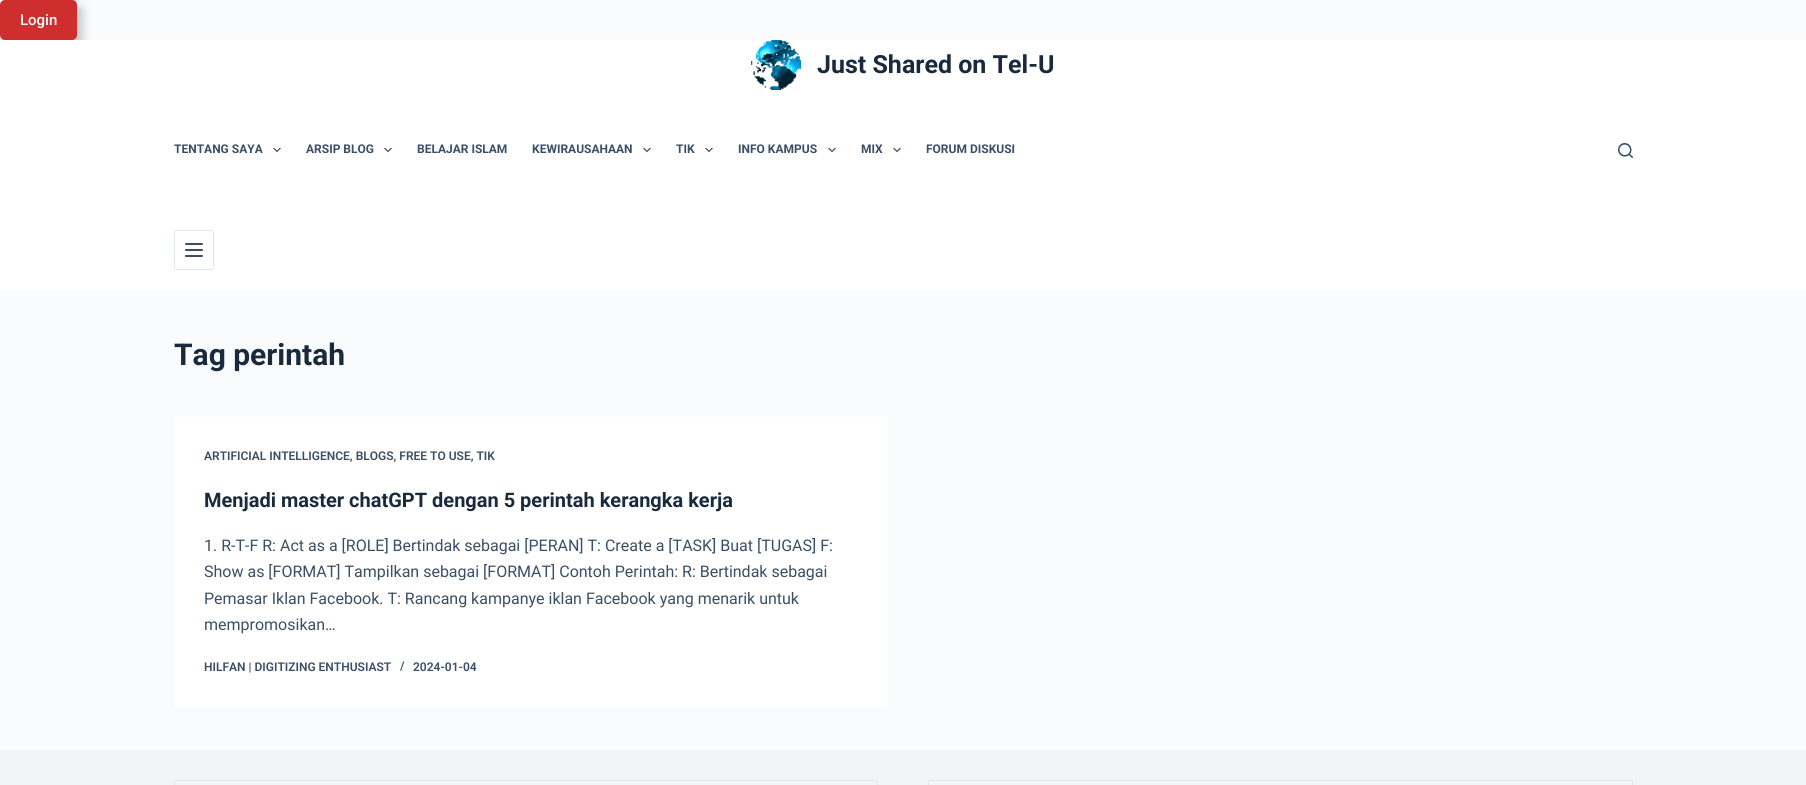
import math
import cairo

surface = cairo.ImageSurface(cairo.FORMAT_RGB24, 1806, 785)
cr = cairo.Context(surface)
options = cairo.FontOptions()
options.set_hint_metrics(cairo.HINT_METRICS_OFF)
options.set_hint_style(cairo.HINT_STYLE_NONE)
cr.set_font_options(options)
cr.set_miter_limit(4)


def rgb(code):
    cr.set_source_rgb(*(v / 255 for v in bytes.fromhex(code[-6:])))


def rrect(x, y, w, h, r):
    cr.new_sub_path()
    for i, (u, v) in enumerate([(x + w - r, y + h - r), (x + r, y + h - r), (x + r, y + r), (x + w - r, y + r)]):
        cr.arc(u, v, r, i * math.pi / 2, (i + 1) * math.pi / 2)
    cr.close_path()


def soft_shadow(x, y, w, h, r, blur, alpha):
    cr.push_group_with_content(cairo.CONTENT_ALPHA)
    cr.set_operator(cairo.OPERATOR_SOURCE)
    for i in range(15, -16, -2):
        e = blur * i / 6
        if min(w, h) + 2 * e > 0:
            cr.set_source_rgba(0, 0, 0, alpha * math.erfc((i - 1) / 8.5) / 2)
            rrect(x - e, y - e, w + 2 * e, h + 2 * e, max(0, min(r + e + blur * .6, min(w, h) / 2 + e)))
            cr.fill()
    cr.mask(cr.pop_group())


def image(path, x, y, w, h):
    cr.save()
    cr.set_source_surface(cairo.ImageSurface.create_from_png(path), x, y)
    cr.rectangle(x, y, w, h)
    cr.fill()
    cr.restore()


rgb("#fafbfc")
cr.paint()
rgb("#000000")
soft_shadow(6, 6, 77, 40, 5, 4.5, 0.2)
rgb("#cf2e2e")
rrect(0, 0, 77, 40, 5)
cr.fill()
rgb("#ffffff")
cr.rectangle(0, 40, 1806, 250)
cr.fill()
rrect(174.5, 230.5, 39, 39, 2.5)
rgb("#e3e8ed")
cr.set_line_width(1)
cr.stroke()
rgb("#3a4f66")
rrect(185, 243, 18, 2, 1)
cr.fill()
rrect(185, 249, 18, 2, 1)
cr.fill()
rrect(185, 255, 18, 2, 1)
cr.fill()
image("img/1.png", 751, 40, 50, 50)
image("img/2.png", 273, 147, 8, 6)
image("img/2.png", 384, 147, 8, 6)
image("img/2.png", 643, 147, 8, 6)
image("img/2.png", 705, 147, 8, 6)
image("img/2.png", 828, 147, 8, 6)
image("img/2.png", 893, 147, 8, 6)
image("img/3.png", 1618, 143, 15, 15)
rgb("#ffffff")
cr.rectangle(174, 417, 714, 291)
cr.fill()
rgb("#f2f5f7")
cr.rectangle(0, 750, 1806, 35)
cr.fill()
rgb("#e1e8ed")
cr.set_fill_rule(cairo.FILL_RULE_EVEN_ODD)
cr.new_path()
cr.move_to(177, 780)
cr.line_to(838, 780)
cr.line_to(838, 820)
cr.line_to(177, 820)
cr.curve_to(175, 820, 174, 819, 174, 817)
cr.line_to(174, 783)
cr.curve_to(174, 781, 175, 780, 177, 780)
cr.close_path()
cr.move_to(177, 781)
cr.line_to(838, 781)
cr.line_to(838, 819)
cr.line_to(177, 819)
cr.curve_to(176, 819, 175, 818, 175, 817)
cr.line_to(175, 783)
cr.curve_to(175, 782, 176, 781, 177, 781)
cr.close_path()
cr.fill()
cr.new_path()
cr.move_to(838, 780)
cr.line_to(875, 780)
cr.curve_to(877, 780, 878, 781, 878, 783)
cr.line_to(878, 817)
cr.curve_to(878, 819, 877, 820, 875, 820)
cr.line_to(838, 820)
cr.close_path()
cr.move_to(838, 781)
cr.line_to(875, 781)
cr.curve_to(876, 781, 877, 782, 877, 783)
cr.line_to(877, 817)
cr.curve_to(877, 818, 876, 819, 875, 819)
cr.line_to(838, 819)
cr.close_path()
cr.fill()
for x, y, w, h, color in [
    (928, 780, 705, 1, "#e1e8ed"),
    (1632, 780, 1, 5, "#e1e8ed"),
    (928, 780, 1, 5, "#e1e8ed"),
]:
    rgb(color)
    cr.rectangle(x, y, w, h)
    cr.fill()
cr.select_font_face("Roboto Medium")
cr.set_font_size(15)
rgb("#ffffff")
cr.move_to(20, 25)
cr.show_text("Login")
cr.select_font_face("Roboto", cairo.FONT_SLANT_NORMAL, cairo.FONT_WEIGHT_BOLD)
cr.set_font_size(25)
rgb("#192a3d")
cr.move_to(817, 73)
cr.show_text("Just Shared on Tel-U")
cr.set_font_size(12)
rgb("#3a4f66")
for x, y, s in [
    (174, 153, "TENTANG SAYA"),
    (306, 153, "ARSIP BLOG"),
    (417, 153, "BELAJAR ISLAM"),
    (532, 153, "KEWIRAUSAHAAN"),
    (676, 153, "TIK"),
    (738, 153, "INFO KAMPUS"),
    (861, 153, "MIX"),
    (926, 153, "FORUM DISKUSI"),
]:
    cr.move_to(x, y)
    cr.show_text(s)
cr.set_font_size(30)
rgb("#192a3d")
cr.move_to(174, 365)
cr.show_text("Tag perintah")
cr.select_font_face("Roboto SemiBold")
cr.set_font_size(12)
rgb("#3a4f66")
cr.move_to(204, 460)
cr.show_text("ARTIFICIAL INTELLIGENCE, BLOGS, FREE TO USE, TIK")
cr.select_font_face("Roboto", cairo.FONT_SLANT_NORMAL, cairo.FONT_WEIGHT_BOLD)
cr.set_font_size(20)
rgb("#192a3d")
cr.move_to(204, 507)
cr.show_text("Menjadi master chatGPT dengan 5 perintah kerangka kerja")
cr.select_font_face("Roboto")
cr.set_font_size(16)
rgb("#3a4f66")
for x, y, s in [
    (204, 551, "1. R-T-F R: Act as a [ROLE] Bertindak sebagai [PERAN] T: Create a [TASK] Buat [TUGAS] F:"),
    (204, 577, "Show as [FORMAT] Tampilkan sebagai [FORMAT] Contoh Perintah: R: Bertindak sebagai"),
    (204, 604, "Pemasar Iklan Facebook. T: Rancang kampanye iklan Facebook yang menarik untuk"),
    (204, 630, "mempromosikan…"),
]:
    cr.move_to(x, y)
    cr.show_text(s)
cr.select_font_face("Roboto SemiBold")
cr.set_font_size(12)
for x, y, s in [
    (204, 671, "HILFAN | DIGITIZING ENTHUSIAST"),
    (400, 670, "/"),
    (413, 671, "2024-01-04"),
]:
    cr.move_to(x, y)
    cr.show_text(s)
surface.write_to_png("page.png")
